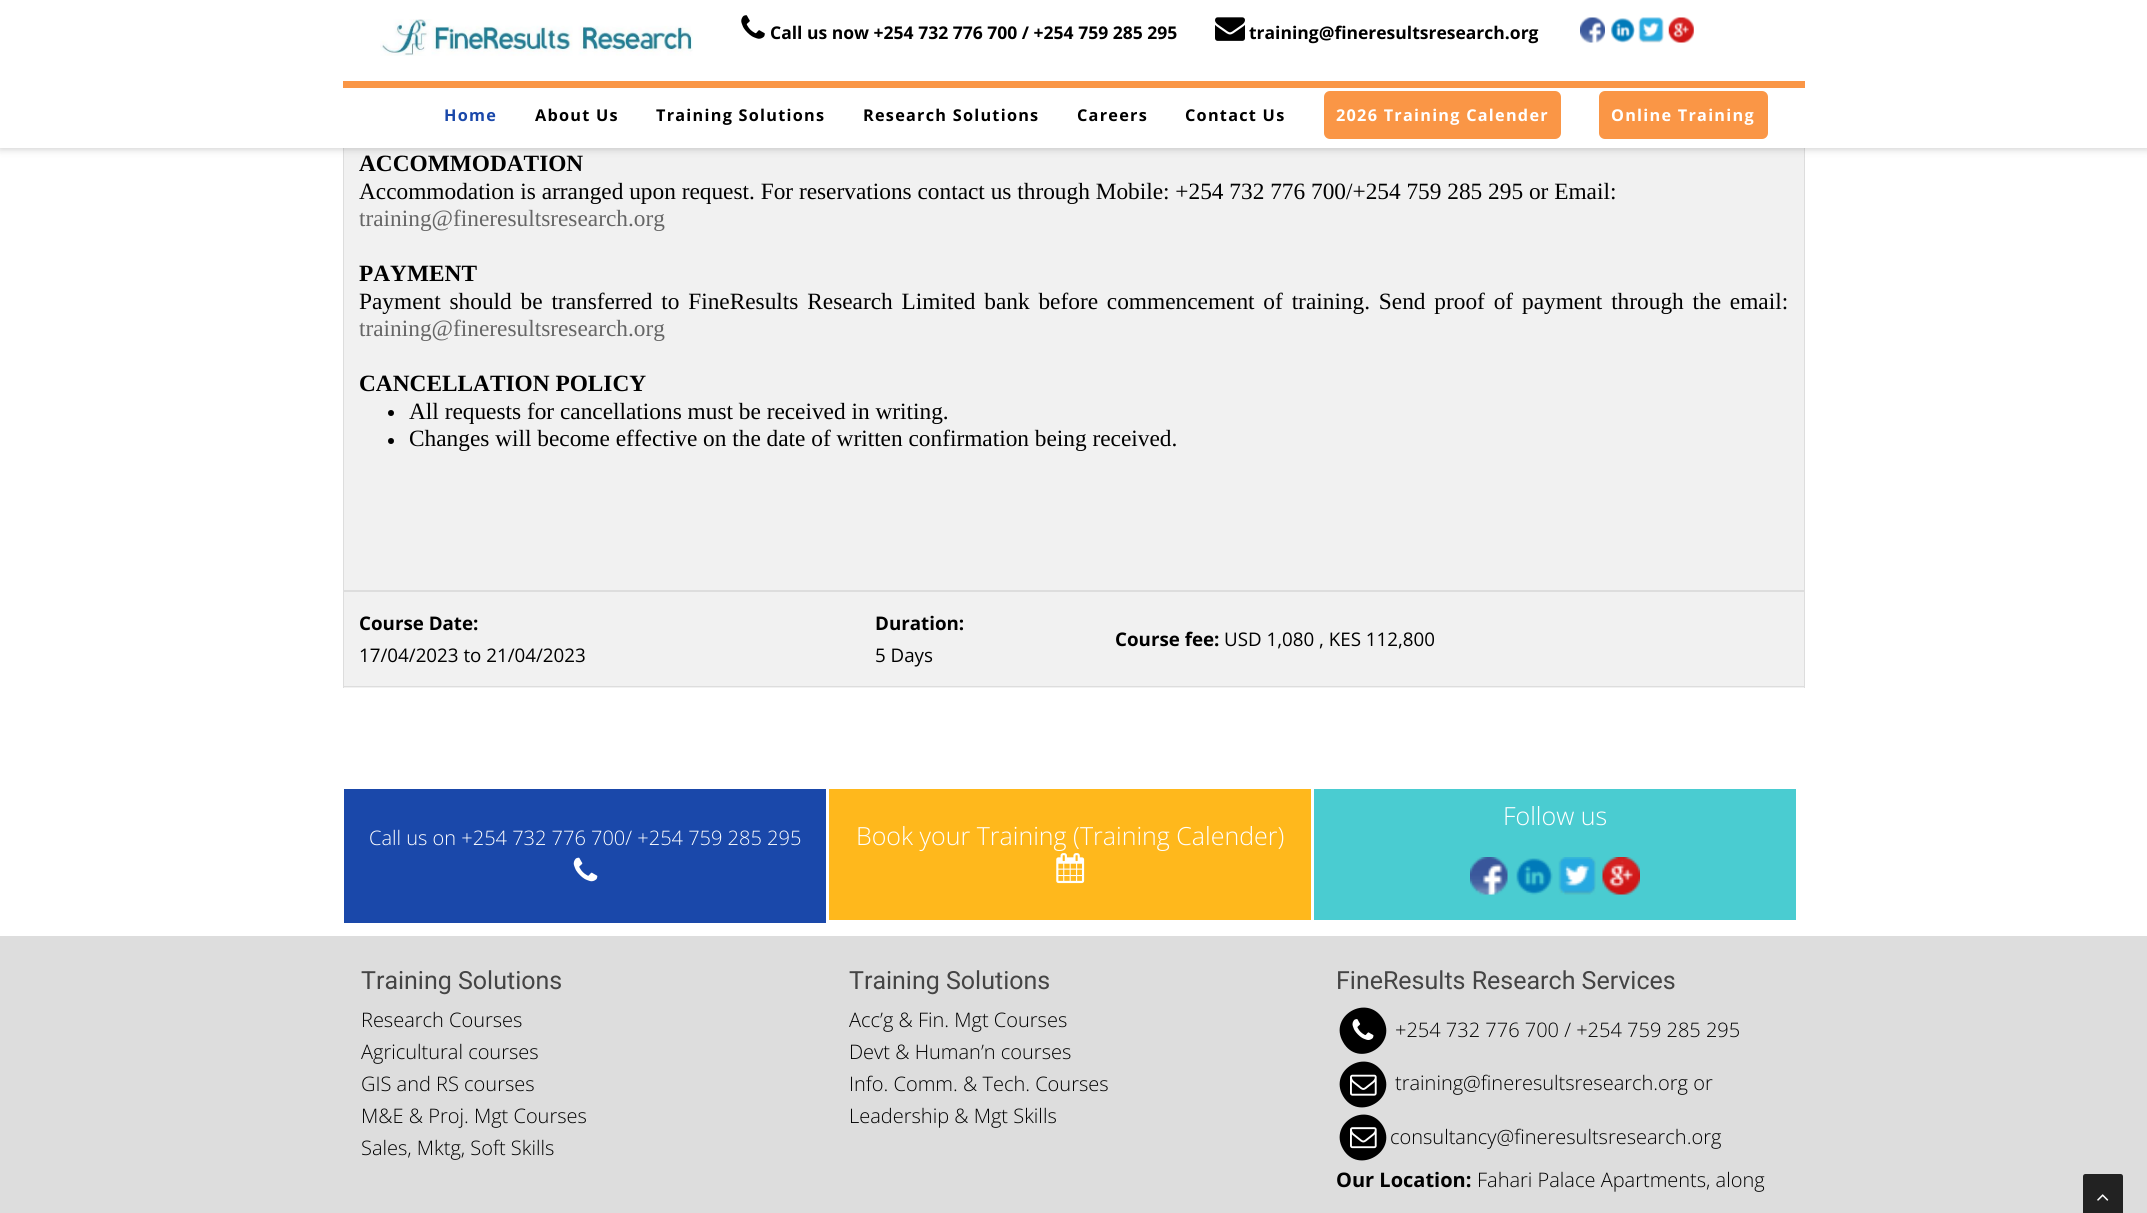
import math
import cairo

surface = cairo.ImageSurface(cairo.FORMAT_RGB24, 2147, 1213)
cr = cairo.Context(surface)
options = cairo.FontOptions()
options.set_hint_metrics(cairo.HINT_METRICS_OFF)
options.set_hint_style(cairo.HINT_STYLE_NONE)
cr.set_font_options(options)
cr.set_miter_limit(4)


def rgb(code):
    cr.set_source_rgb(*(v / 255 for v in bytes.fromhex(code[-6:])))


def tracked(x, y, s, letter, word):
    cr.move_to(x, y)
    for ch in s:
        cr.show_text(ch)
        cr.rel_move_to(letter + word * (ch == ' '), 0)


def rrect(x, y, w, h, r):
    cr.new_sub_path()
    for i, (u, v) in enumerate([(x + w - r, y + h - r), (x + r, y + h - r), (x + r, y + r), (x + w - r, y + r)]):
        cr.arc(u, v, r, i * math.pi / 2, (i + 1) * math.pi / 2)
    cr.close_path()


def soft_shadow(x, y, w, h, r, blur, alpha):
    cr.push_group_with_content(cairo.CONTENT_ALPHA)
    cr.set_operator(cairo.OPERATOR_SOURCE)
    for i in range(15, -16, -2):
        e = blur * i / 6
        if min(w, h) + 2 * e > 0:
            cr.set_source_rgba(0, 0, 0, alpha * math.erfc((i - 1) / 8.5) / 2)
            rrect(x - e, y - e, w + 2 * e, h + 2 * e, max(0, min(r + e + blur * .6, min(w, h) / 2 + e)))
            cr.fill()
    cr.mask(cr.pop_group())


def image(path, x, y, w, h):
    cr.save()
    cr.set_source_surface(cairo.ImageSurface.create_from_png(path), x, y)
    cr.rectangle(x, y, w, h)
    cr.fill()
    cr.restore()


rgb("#ffffff")
cr.paint()
for x, y, w, h, color in [
    (344, 148, 1460, 442, "#f1f1f1"),
    (1804, 148, 1, 443, "#dddddd"),
    (343, 590, 1462, 2, "#dddddd"),
    (343, 148, 1, 443, "#dddddd"),
]:
    rgb(color)
    cr.rectangle(x, y, w, h)
    cr.fill()
rgb("#000000")
soft_shadow(0, 1, 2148, 148, 0, 4, 0.2)
rgb("#ffffff")
cr.rectangle(0, 0, 2147, 148)
cr.fill()
image("img/1.png", 380, 19, 313, 37)
image("img/2.png", 741, 15, 24, 24)
image("img/3.png", 1215, 17, 30, 24)
image("img/4.png", 1580, 17, 25, 26)
image("img/5.png", 1610, 18, 25, 25)
image("img/6.png", 1638, 17, 26, 26)
image("img/7.png", 1668, 17, 26, 26)
rgb("#fa9646")
cr.rectangle(343, 81, 1462, 7)
cr.fill()
rrect(1324, 91, 237, 48, 6)
cr.fill()
rrect(1599, 91, 169, 48, 6)
cr.fill()
rgb("#000000")
cr.arc(391, 413, 3, 0, 2 * math.pi)
cr.fill()
cr.arc(391, 441, 3, 0, 2 * math.pi)
cr.fill()
for x, y, w, h, color in [
    (344, 592, 1460, 96, "#f1f1f1"),
    (1804, 591, 1, 97, "#dddddd"),
    (343, 686, 1462, 1, "#dddddd"),
    (343, 591, 1, 97, "#dddddd"),
    (1314, 789, 482, 131, "#4accd1"),
]:
    rgb(color)
    cr.rectangle(x, y, w, h)
    cr.fill()
image("img/8.png", 1470, 857, 38, 38)
image("img/9.png", 1516, 858, 37, 37)
image("img/10.png", 1558, 857, 38, 38)
image("img/11.png", 1602, 857, 38, 38)
rgb("#1a48aa")
cr.rectangle(344, 789, 482, 134)
cr.fill()
image("img/12.png", 573, 857, 25, 25)
rgb("#ffb81c")
cr.rectangle(829, 789, 482, 131)
cr.fill()
image("img/13.png", 1056, 853, 29, 31)
rgb("#dddddd")
cr.rectangle(0, 936, 2147, 277)
cr.fill()
rgb("#000000")
cr.new_path()
cr.move_to(1383, 1019)
cr.curve_to(1398, 1045, 1358, 1069, 1343, 1042)
cr.curve_to(1328, 1016, 1367, 993, 1383, 1019)
cr.close_path()
cr.fill()
image("img/14.png", 1352, 1019, 22, 21)
cr.new_path()
cr.move_to(1383, 1073)
cr.curve_to(1398, 1099, 1358, 1122, 1343, 1096)
cr.curve_to(1328, 1070, 1367, 1047, 1383, 1073)
cr.close_path()
cr.fill()
image("img/15.png", 1350, 1074, 27, 22)
cr.new_path()
cr.move_to(1383, 1126)
cr.curve_to(1398, 1152, 1358, 1175, 1343, 1149)
cr.curve_to(1328, 1123, 1367, 1100, 1383, 1126)
cr.close_path()
cr.fill()
image("img/16.png", 1350, 1127, 27, 22)
rgb("#222222")
cr.new_path()
cr.move_to(2085.5, 1174)
cr.line_to(2120.5, 1174)
cr.curve_to(2122, 1174, 2123, 1175, 2123, 1176.5)
cr.line_to(2123, 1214)
cr.line_to(2083, 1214)
cr.line_to(2083, 1176.5)
cr.curve_to(2083, 1175, 2084, 1174, 2085.5, 1174)
cr.close_path()
cr.fill()
image("img/17.png", 2097, 1194, 12, 7)
cr.select_font_face("Open Sans", cairo.FONT_SLANT_NORMAL, cairo.FONT_WEIGHT_BOLD)
cr.set_font_size(17.5)
rgb("#000000")
cr.move_to(770, 39)
cr.show_text("Call us now +254 732 776 700 / +254 759 285 295")
cr.move_to(1249, 39)
cr.show_text("training@fineresultsresearch.org")
cr.set_font_size(16.25)
rgb("#1a48aa")
tracked(444, 121, "Home", 1.25, 0)
rgb("#000000")
for x, y, s in [
    (535, 121, "About Us"),
    (656, 121, "Training Solutions"),
    (863, 121, "Research Solutions"),
    (1077, 121, "Careers"),
    (1185, 121, "Contact Us"),
]:
    tracked(x, y, s, 1.25, 0)
rgb("#ffffff")
tracked(1336, 121, "2026 Training Calender", 1.25, 0)
tracked(1611, 121, "Online Training", 1.25, 0)
cr.select_font_face("Liberation Serif", cairo.FONT_SLANT_NORMAL, cairo.FONT_WEIGHT_BOLD)
cr.set_font_size(23.33)
rgb("#000000")
cr.move_to(359, 171)
cr.show_text("ACCOMMODATION")
cr.select_font_face("Liberation Serif")
cr.move_to(359, 199)
cr.show_text("Accommodation is arranged upon request. For reservations contact us through Mobile: +254 732 776 700/+254 759 285 295 or Email:")
rgb("#666666")
cr.move_to(359, 226)
cr.show_text("training@fineresultsresearch.org")
cr.select_font_face("Liberation Serif", cairo.FONT_SLANT_NORMAL, cairo.FONT_WEIGHT_BOLD)
rgb("#000000")
cr.move_to(359, 281)
cr.show_text("PAYMENT")
cr.select_font_face("Liberation Serif")
tracked(359, 309, "Payment should be transferred to FineResults Research Limited bank before commencement of training. Send proof of payment through the email:", 0, 3)
rgb("#666666")
cr.move_to(359, 336)
cr.show_text("training@fineresultsresearch.org")
cr.select_font_face("Liberation Serif", cairo.FONT_SLANT_NORMAL, cairo.FONT_WEIGHT_BOLD)
rgb("#000000")
cr.move_to(359, 391)
cr.show_text("CANCELLATION POLICY")
cr.select_font_face("Liberation Serif")
cr.move_to(409, 419)
cr.show_text("All requests for cancellations must be received in writing.")
cr.move_to(409, 446)
cr.show_text("Changes will become effective on the date of written confirmation being received.")
cr.select_font_face("Open Sans", cairo.FONT_SLANT_NORMAL, cairo.FONT_WEIGHT_BOLD)
cr.set_font_size(18.75)
cr.move_to(359, 630)
cr.show_text("Course Date:")
cr.select_font_face("Open Sans")
cr.move_to(359, 662)
cr.show_text("17/04/2023 to 21/04/2023")
cr.select_font_face("Open Sans", cairo.FONT_SLANT_NORMAL, cairo.FONT_WEIGHT_BOLD)
cr.move_to(875, 630)
cr.show_text("Duration:")
cr.select_font_face("Open Sans")
cr.move_to(875, 662)
cr.show_text("5 Days")
cr.select_font_face("Open Sans", cairo.FONT_SLANT_NORMAL, cairo.FONT_WEIGHT_BOLD)
cr.move_to(1115, 646)
cr.show_text("Course fee:")
cr.select_font_face("Open Sans")
cr.move_to(1224, 646)
cr.show_text("USD 1,080 , KES 112,800")
cr.select_font_face("Open Sans Light")
cr.set_font_size(25)
rgb("#ffffff")
cr.move_to(1503, 825)
cr.show_text("Follow us")
cr.set_font_size(20)
cr.move_to(369, 845)
cr.show_text("Call us on +254 732 776 700/ +254 759 285 295")
cr.set_font_size(25)
cr.move_to(856, 845)
cr.show_text("Book your Training (Training Calender)")
cr.select_font_face("Roboto")
rgb("#444444")
cr.move_to(361, 989)
cr.show_text("Training Solutions")
cr.select_font_face("Open Sans Light")
cr.set_font_size(20)
rgb("#000000")
for x, y, s in [
    (361, 1027, "Research Courses"),
    (361, 1059, "Agricultural courses"),
    (361, 1091, "GIS and RS courses"),
    (361, 1123, "M&E & Proj. Mgt Courses"),
    (361, 1155, "Sales, Mktg, Soft Skills"),
]:
    cr.move_to(x, y)
    cr.show_text(s)
cr.select_font_face("Roboto")
cr.set_font_size(25)
rgb("#444444")
cr.move_to(849, 989)
cr.show_text("Training Solutions")
cr.select_font_face("Open Sans Light")
cr.set_font_size(20)
rgb("#000000")
for x, y, s in [
    (849, 1027, "Acc’g & Fin. Mgt Courses"),
    (849, 1059, "Devt & Human’n courses"),
    (849, 1091, "Info. Comm. & Tech. Courses"),
    (849, 1123, "Leadership & Mgt Skills"),
]:
    cr.move_to(x, y)
    cr.show_text(s)
cr.select_font_face("Roboto")
cr.set_font_size(25)
rgb("#444444")
cr.move_to(1336, 989)
cr.show_text("FineResults Research Services")
cr.select_font_face("Open Sans Light")
cr.set_font_size(20)
rgb("#000000")
for x, y, s in [
    (1395, 1037, "+254 732 776 700 / +254 759 285 295"),
    (1395, 1090, "training@fineresultsresearch.org or"),
    (1390, 1144, "consultancy@fineresultsresearch.org"),
]:
    cr.move_to(x, y)
    cr.show_text(s)
cr.select_font_face("Open Sans", cairo.FONT_SLANT_NORMAL, cairo.FONT_WEIGHT_BOLD)
cr.move_to(1336, 1187)
cr.show_text("Our Location:")
cr.select_font_face("Open Sans Light")
cr.move_to(1477, 1187)
cr.show_text("Fahari Palace Apartments, along")
surface.write_to_png("page.png")
